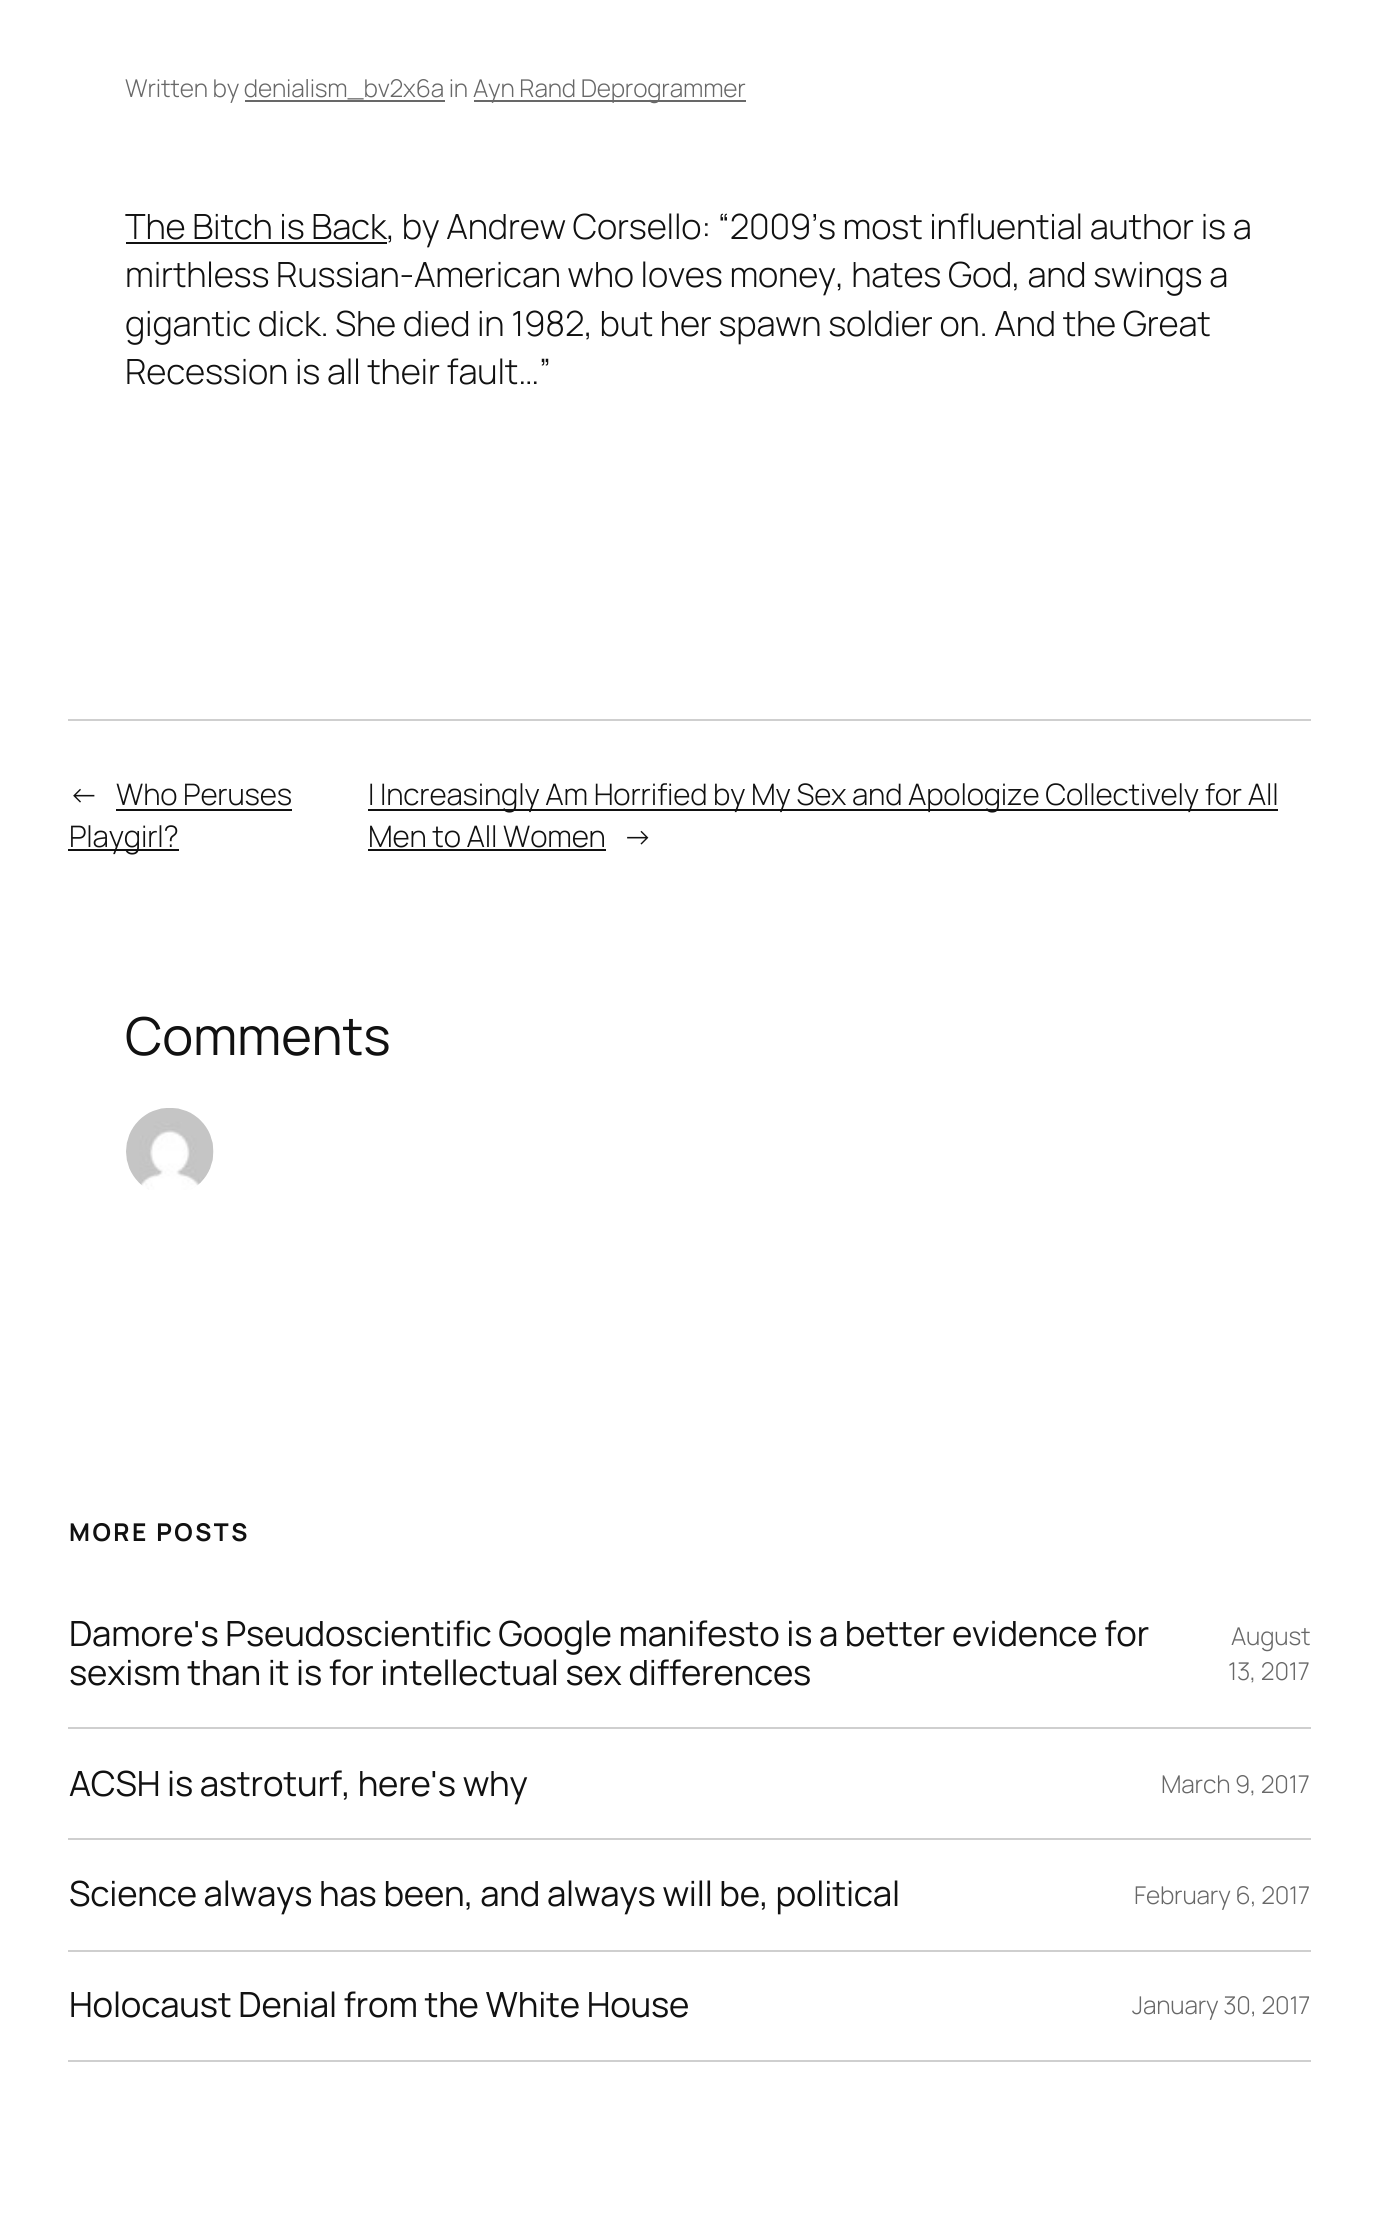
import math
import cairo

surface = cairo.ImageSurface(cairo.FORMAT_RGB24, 1379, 2214)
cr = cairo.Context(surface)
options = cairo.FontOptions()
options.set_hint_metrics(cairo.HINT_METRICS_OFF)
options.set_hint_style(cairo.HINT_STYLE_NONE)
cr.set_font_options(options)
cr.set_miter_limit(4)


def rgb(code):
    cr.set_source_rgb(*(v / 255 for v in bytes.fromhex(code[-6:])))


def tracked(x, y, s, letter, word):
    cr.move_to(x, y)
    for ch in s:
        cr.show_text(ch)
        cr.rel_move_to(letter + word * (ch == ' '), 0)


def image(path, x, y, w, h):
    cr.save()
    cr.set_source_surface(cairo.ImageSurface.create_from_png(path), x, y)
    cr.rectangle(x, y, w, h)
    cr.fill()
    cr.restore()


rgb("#ffffff")
cr.paint()
for x, y, w, h, color in [
    (474, 100, 272, 2, "#686868"),
    (245, 100, 200, 2, "#686868"),
    (126, 242, 261, 2, "#111111"),
    (68, 719, 1243, 2, "#cfcfcf"),
    (116, 809, 176, 2, "#111111"),
    (68, 849, 111, 2, "#111111"),
    (368, 809, 910, 2, "#111111"),
    (368, 849, 238, 2, "#111111"),
]:
    rgb(color)
    cr.rectangle(x, y, w, h)
    cr.fill()
image("img/1.png", 126, 1108, 88, 82)
for x, y, w, h, color in [
    (68, 1727, 1243, 2, "#cfcfcf"),
    (68, 1838, 1243, 2, "#cfcfcf"),
    (68, 1950, 1243, 2, "#cfcfcf"),
    (68, 2060, 1243, 2, "#cfcfcf"),
]:
    rgb(color)
    cr.rectangle(x, y, w, h)
    cr.fill()
cr.select_font_face("Manrope Light")
cr.set_font_size(24.5)
rgb("#686868")
tracked(125, 97, "Written by denialism_bv2x6a in", -0.18, 0)
tracked(473, 97, "Ayn Rand Deprogrammer", -0.18, 0)
cr.set_font_size(34.7)
rgb("#111111")
for x, y, s in [
    (125, 239, "The Bitch is Back, by Andrew Corsello: “2009’s most influential author is a"),
    (125, 287, "mirthless Russian-American who loves money, hates God, and swings a"),
    (125, 336, "gigantic dick. She died in 1982, but her spawn soldier on. And the Great"),
    (125, 384, "Recession is all their fault…”"),
]:
    tracked(x, y, s, -0.18, 0)
cr.set_font_size(29.6)
for x, y, s in [
    (69, 805, "←"),
    (116, 805, "Who Peruses"),
    (69, 847, "Playgirl?"),
    (368, 805, "I Increasingly Am Horrified by My Sex and Apologize Collectively for All"),
    (368, 847, "Men to All Women"),
    (623, 847, "→"),
]:
    tracked(x, y, s, -0.18, 0)
cr.select_font_face("Manrope")
cr.set_font_size(52.25)
tracked(125, 1055, "Comments", -0.18, 0)
cr.select_font_face("Manrope", cairo.FONT_SLANT_NORMAL, cairo.FONT_WEIGHT_BOLD)
cr.set_font_size(24.5)
tracked(69, 1541, "MORE POSTS", 2.5, 0)
cr.select_font_face("Manrope")
cr.set_font_size(34.7)
tracked(69, 1646, "Damore's Pseudoscientific Google manifesto is a better evidence for", -0.18, 0)
tracked(69, 1685, "sexism than it is for intellectual sex differences", -0.18, 0)
cr.select_font_face("Manrope Light")
cr.set_font_size(24.5)
rgb("#686868")
tracked(1231, 1645, "August", -0.18, 0)
tracked(1228, 1680, "13, 2017", -0.18, 0)
cr.select_font_face("Manrope")
cr.set_font_size(34.7)
rgb("#111111")
tracked(69, 1796, "ACSH is astroturf, here's why", -0.18, 0)
cr.select_font_face("Manrope Light")
cr.set_font_size(24.5)
rgb("#686868")
tracked(1161, 1793, "March 9, 2017", -0.18, 0)
cr.select_font_face("Manrope")
cr.set_font_size(34.7)
rgb("#111111")
tracked(69, 1906, "Science always has been, and always will be, political", -0.18, 0)
cr.select_font_face("Manrope Light")
cr.set_font_size(24.5)
rgb("#686868")
tracked(1134, 1904, "February 6, 2017", -0.18, 0)
cr.select_font_face("Manrope")
cr.set_font_size(34.7)
rgb("#111111")
tracked(69, 2017, "Holocaust Denial from the White House", -0.18, 0)
cr.select_font_face("Manrope Light")
cr.set_font_size(24.5)
rgb("#686868")
tracked(1132, 2014, "January 30, 2017", -0.18, 0)
surface.write_to_png("page.png")
